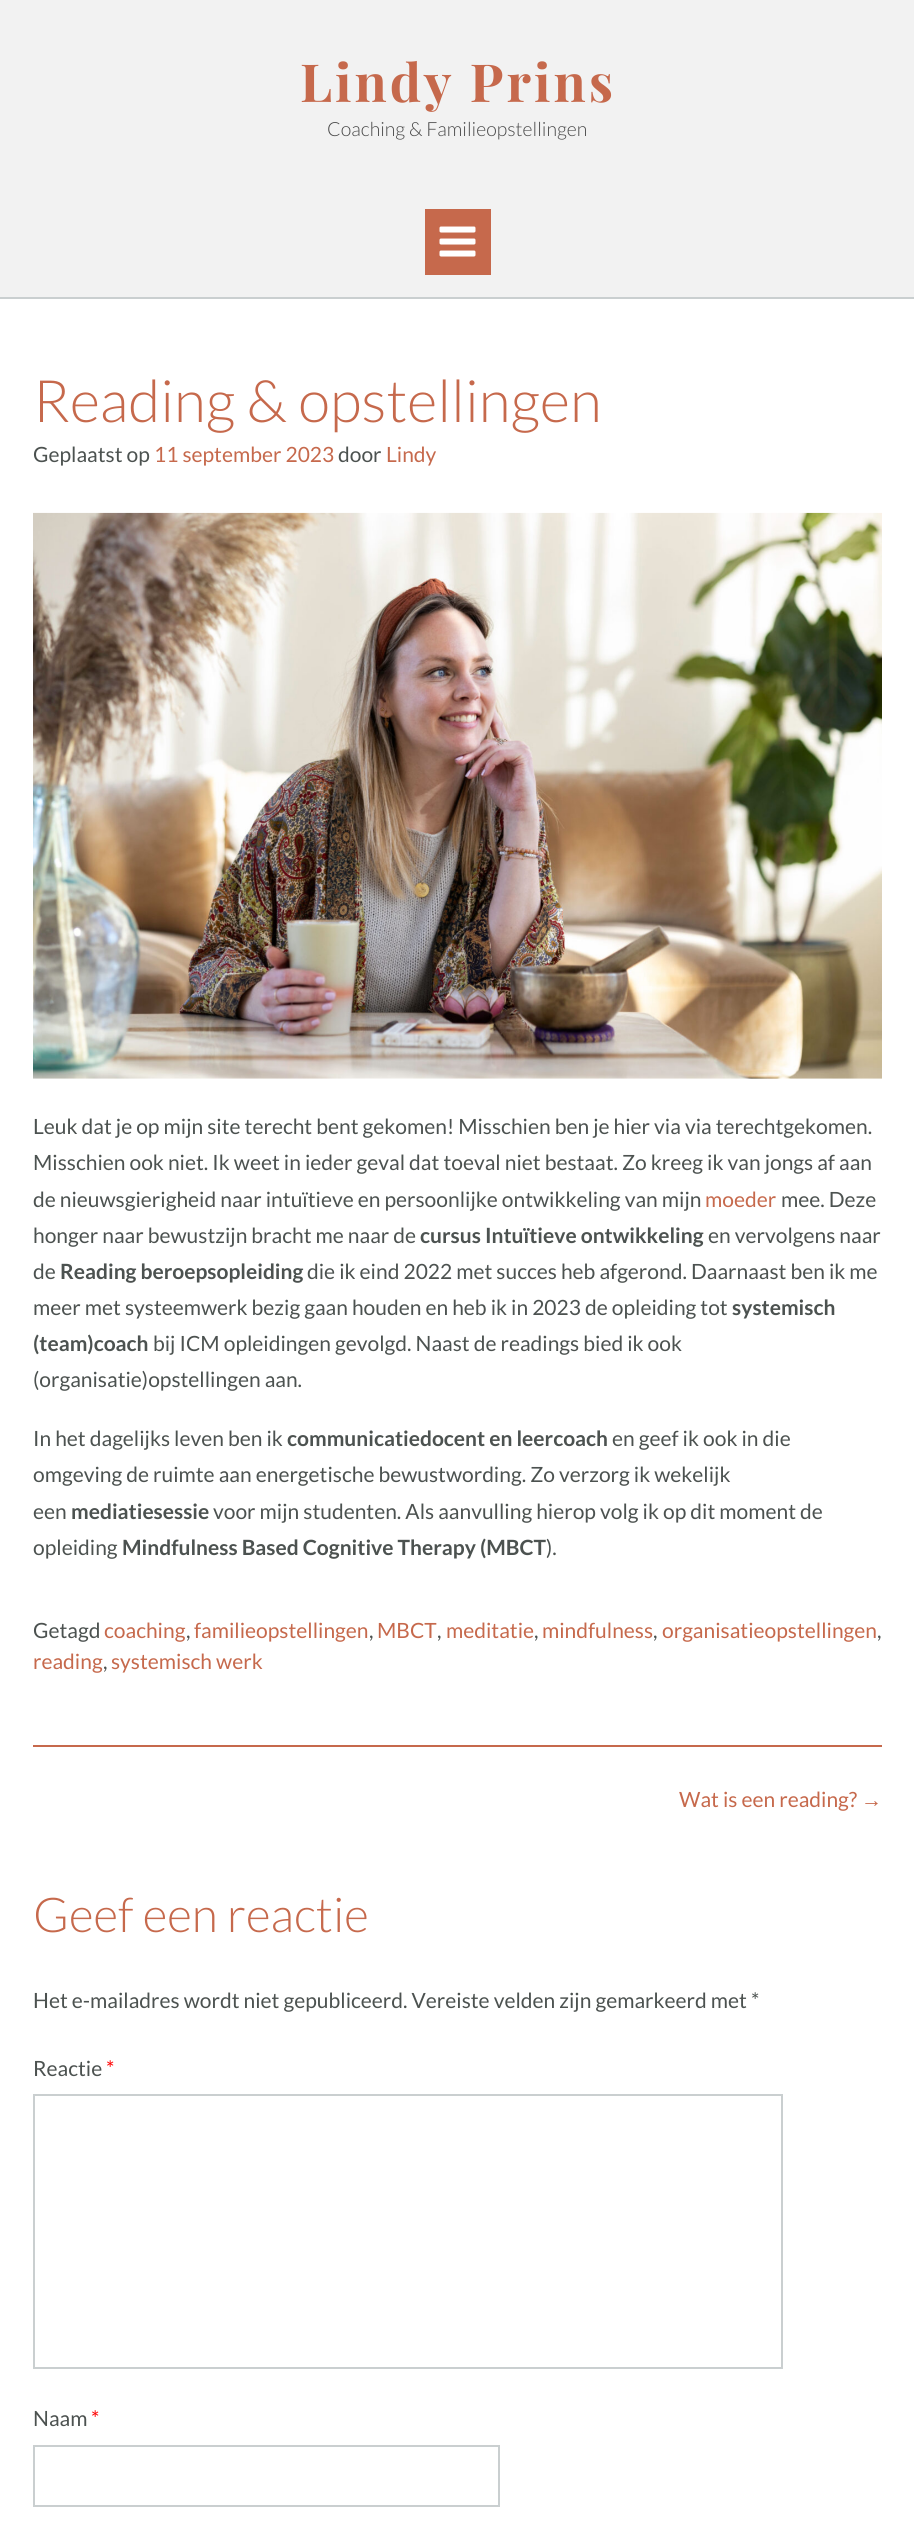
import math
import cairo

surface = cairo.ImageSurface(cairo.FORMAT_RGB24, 914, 2532)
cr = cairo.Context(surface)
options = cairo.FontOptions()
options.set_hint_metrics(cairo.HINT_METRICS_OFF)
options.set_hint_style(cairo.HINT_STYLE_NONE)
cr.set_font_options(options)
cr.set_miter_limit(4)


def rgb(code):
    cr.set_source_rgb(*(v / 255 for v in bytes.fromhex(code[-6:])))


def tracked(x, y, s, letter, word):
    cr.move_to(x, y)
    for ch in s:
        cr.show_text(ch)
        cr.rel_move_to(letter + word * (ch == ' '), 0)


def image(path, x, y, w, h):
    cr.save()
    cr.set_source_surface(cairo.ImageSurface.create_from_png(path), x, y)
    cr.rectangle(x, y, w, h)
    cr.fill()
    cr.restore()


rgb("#ffffff")
cr.paint()
for x, y, w, h, color in [
    (0, 0, 914, 297, "#f2f2f2"),
    (0, 297, 914, 2, "#cacfd0"),
    (425, 209, 66, 66, "#c6694c"),
]:
    rgb(color)
    cr.rectangle(x, y, w, h)
    cr.fill()
image("img/1.png", 439, 226, 37, 31)
cr.rectangle(33, 1745, 849, 2)
cr.fill()
image("img/2.png", 33, 512, 849, 567)
cr.rectangle(34, 2095, 748, 273)
rgb("#cacfd0")
cr.stroke()
cr.rectangle(34, 2446, 465, 60)
cr.stroke()
cr.select_font_face("Playfair Display", cairo.FONT_SLANT_NORMAL, cairo.FONT_WEIGHT_BOLD)
cr.set_font_size(52.5)
rgb("#c6694c")
tracked(300, 102, "Lindy Prins", 3, 0)
cr.select_font_face("Lato Light")
cr.set_font_size(19.5)
rgb("#494949")
cr.move_to(327, 136)
cr.show_text("Coaching & Familieopstellingen")
cr.set_font_size(58.5)
rgb("#c6694c")
cr.move_to(33, 422)
cr.show_text("Reading & opstellingen")
cr.select_font_face("Lato")
cr.set_font_size(21)
rgb("#4c5250")
cr.move_to(33, 462)
cr.show_text("Geplaatst op")
rgb("#c6694c")
cr.move_to(154, 462)
cr.show_text("11 september 2023")
rgb("#4c5250")
cr.move_to(338, 462)
cr.show_text("door")
rgb("#c6694c")
cr.move_to(386, 462)
cr.show_text("Lindy")
rgb("#4c5250")
for x, y, s in [
    (33, 1134, "Leuk dat je op mijn site terecht bent gekomen! Misschien ben je hier via via terechtgekomen."),
    (33, 1170, "Misschien ook niet. Ik weet in ieder geval dat toeval niet bestaat. Zo kreeg ik van jongs af aan"),
    (33, 1207, "de nieuwsgierigheid naar intuïtieve en persoonlijke ontwikkeling van mijn"),
]:
    cr.move_to(x, y)
    cr.show_text(s)
rgb("#c6694c")
cr.move_to(705, 1207)
cr.show_text("moeder")
rgb("#4c5250")
cr.move_to(781, 1207)
cr.show_text("mee. Deze")
cr.move_to(33, 1243)
cr.show_text("honger naar bewustzijn bracht me naar de")
cr.select_font_face("Lato", cairo.FONT_SLANT_NORMAL, cairo.FONT_WEIGHT_BOLD)
cr.move_to(420, 1243)
cr.show_text("cursus Intuïtieve ontwikkeling")
cr.select_font_face("Lato")
cr.move_to(708, 1243)
cr.show_text("en vervolgens naar")
cr.move_to(33, 1279)
cr.show_text("de")
cr.select_font_face("Lato", cairo.FONT_SLANT_NORMAL, cairo.FONT_WEIGHT_BOLD)
cr.move_to(60, 1279)
cr.show_text("Reading beroepsopleiding")
cr.select_font_face("Lato")
cr.move_to(307, 1279)
cr.show_text("die ik eind 2022 met succes heb afgerond. Daarnaast ben ik me")
cr.move_to(33, 1315)
cr.show_text("meer met systeemwerk bezig gaan houden en heb ik in 2023 de opleiding tot")
cr.select_font_face("Lato", cairo.FONT_SLANT_NORMAL, cairo.FONT_WEIGHT_BOLD)
cr.move_to(732, 1315)
cr.show_text("systemisch")
cr.move_to(33, 1351)
cr.show_text("(team)coach")
cr.select_font_face("Lato")
for x, y, s in [
    (153, 1351, "bij ICM opleidingen gevolgd. Naast de readings bied ik ook"),
    (33, 1387, "(organisatie)opstellingen aan."),
    (33, 1446, "In het dagelijks leven ben ik"),
]:
    cr.move_to(x, y)
    cr.show_text(s)
cr.select_font_face("Lato", cairo.FONT_SLANT_NORMAL, cairo.FONT_WEIGHT_BOLD)
cr.move_to(287, 1446)
cr.show_text("communicatiedocent en leercoach")
cr.select_font_face("Lato")
for x, y, s in [
    (612, 1446, "en geef ik ook in die"),
    (33, 1482, "omgeving de ruimte aan energetische bewustwording. Zo verzorg ik wekelijk"),
    (33, 1519, "een"),
]:
    cr.move_to(x, y)
    cr.show_text(s)
cr.select_font_face("Lato", cairo.FONT_SLANT_NORMAL, cairo.FONT_WEIGHT_BOLD)
cr.move_to(71, 1519)
cr.show_text("mediatiesessie")
cr.select_font_face("Lato")
cr.move_to(213, 1519)
cr.show_text("voor mijn studenten. Als aanvulling hierop volg ik op dit moment de")
cr.move_to(33, 1555)
cr.show_text("opleiding")
cr.select_font_face("Lato", cairo.FONT_SLANT_NORMAL, cairo.FONT_WEIGHT_BOLD)
cr.move_to(122, 1555)
cr.show_text("Mindfulness Based Cognitive Therapy (MBCT")
cr.select_font_face("Lato")
cr.move_to(546, 1555)
cr.show_text(").")
cr.move_to(33, 1638)
cr.show_text("Getagd")
rgb("#c6694c")
cr.move_to(104, 1638)
cr.show_text("coaching")
rgb("#4c5250")
cr.move_to(186, 1638)
cr.show_text(",")
rgb("#c6694c")
cr.move_to(194, 1638)
cr.show_text("familieopstellingen")
rgb("#4c5250")
cr.move_to(369, 1638)
cr.show_text(",")
rgb("#c6694c")
cr.move_to(377, 1638)
cr.show_text("MBCT")
rgb("#4c5250")
cr.move_to(437, 1638)
cr.show_text(",")
rgb("#c6694c")
cr.move_to(446, 1638)
cr.show_text("meditatie")
rgb("#4c5250")
cr.move_to(534, 1638)
cr.show_text(",")
rgb("#c6694c")
cr.move_to(542, 1638)
cr.show_text("mindfulness")
rgb("#4c5250")
cr.move_to(653, 1638)
cr.show_text(",")
rgb("#c6694c")
cr.move_to(662, 1638)
cr.show_text("organisatieopstellingen")
rgb("#4c5250")
cr.move_to(877, 1638)
cr.show_text(",")
rgb("#c6694c")
cr.move_to(33, 1669)
cr.show_text("reading")
rgb("#4c5250")
cr.move_to(103, 1669)
cr.show_text(",")
rgb("#c6694c")
cr.move_to(111, 1669)
cr.show_text("systemisch werk")
cr.move_to(679, 1807)
cr.show_text("Wat is een reading?")
cr.select_font_face("Liberation Sans")
cr.move_to(861, 1807)
cr.show_text("→")
cr.select_font_face("Lato Light")
cr.set_font_size(48)
cr.move_to(33, 1932)
cr.show_text("Geef een reactie")
cr.select_font_face("Lato")
cr.set_font_size(21)
rgb("#4c5250")
cr.move_to(33, 2008)
cr.show_text("Het e-mailadres wordt niet gepubliceerd. Vereiste velden zijn gemarkeerd met *")
cr.move_to(33, 2076)
cr.show_text("Reactie")
rgb("#ff0000")
cr.move_to(106, 2076)
cr.show_text("*")
rgb("#4c5250")
cr.move_to(33, 2426)
cr.show_text("Naam")
rgb("#ff0000")
cr.move_to(91, 2426)
cr.show_text("*")
surface.write_to_png("page.png")
